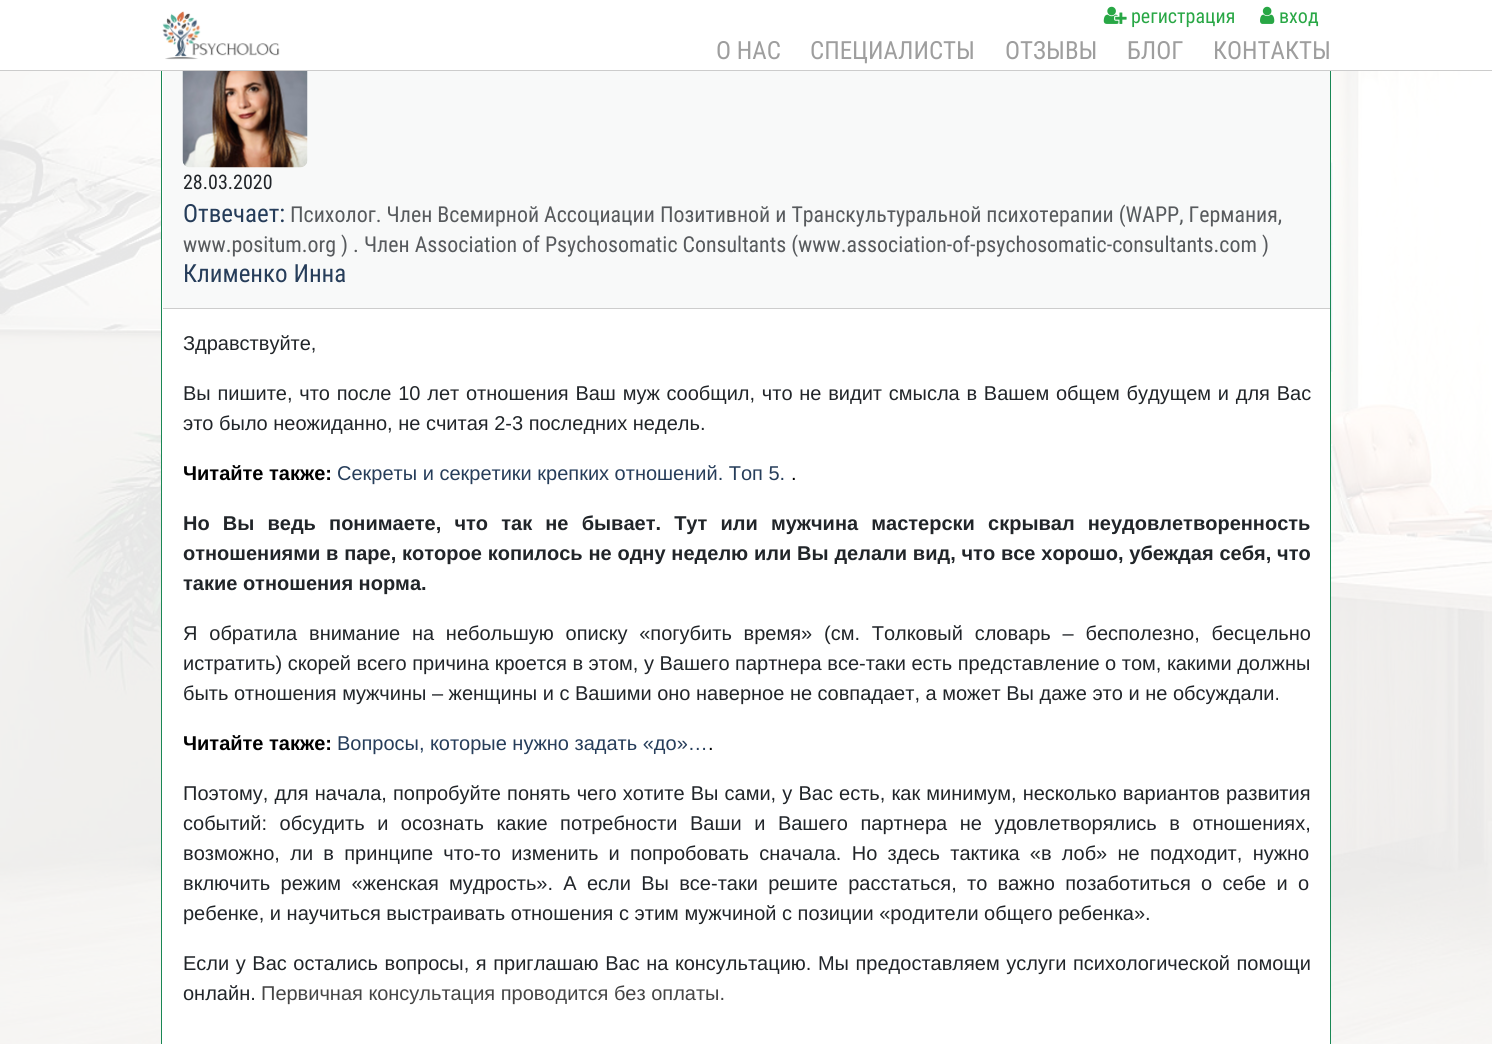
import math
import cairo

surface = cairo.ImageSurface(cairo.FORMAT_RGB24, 1492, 1044)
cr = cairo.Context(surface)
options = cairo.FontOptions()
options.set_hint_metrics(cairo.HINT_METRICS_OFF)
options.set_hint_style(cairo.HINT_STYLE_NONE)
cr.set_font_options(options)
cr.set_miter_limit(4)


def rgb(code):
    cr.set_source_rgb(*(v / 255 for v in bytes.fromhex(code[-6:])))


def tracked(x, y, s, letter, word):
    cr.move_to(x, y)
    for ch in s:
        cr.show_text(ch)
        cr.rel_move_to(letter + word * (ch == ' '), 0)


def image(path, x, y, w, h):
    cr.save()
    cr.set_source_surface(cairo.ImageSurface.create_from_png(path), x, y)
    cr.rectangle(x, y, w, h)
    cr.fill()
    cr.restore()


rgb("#ffffff")
cr.paint()
image("img/4.png", 0, 71, 1492, 973)
rgb("#ffffff")
cr.rectangle(162, 71, 1168, 973)
cr.fill()
cr.rectangle(161.5, 31.5, 1169, 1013)
rgb("#198754")
cr.set_line_width(1)
cr.stroke()
rgb("#ffffff")
cr.rectangle(161, 31, 1170, 39)
cr.fill()
rgb("#cccccc")
cr.rectangle(0, 70, 1492, 1)
cr.fill()
image("img/1.png", 162, 11, 118, 49)
image("img/2.png", 1103, 6, 24, 18)
image("img/3.png", 1260, 6, 15, 18)
cr.set_source_rgba(0.129, 0.145, 0.161, 0.03)
cr.rectangle(163, 71, 1167, 237)
cr.fill()
rgb("#cdcdcd")
cr.rectangle(163, 308, 1167, 1)
cr.fill()
image("img/5.png", 182, 71, 126, 97)
cr.select_font_face("Roboto Condensed")
cr.set_font_size(20)
rgb("#28a745")
cr.move_to(1131, 23)
cr.show_text("регистрация")
cr.move_to(1279, 23)
cr.show_text("вход")
cr.set_font_size(25)
rgb("#9e9e9e")
for x, y, s in [
    (716, 59, "О НАС"),
    (810, 59, "СПЕЦИАЛИСТЫ"),
    (1005, 59, "ОТЗЫВЫ"),
    (1127, 59, "БЛОГ"),
    (1213, 59, "КОНТАКТЫ"),
]:
    cr.move_to(x, y)
    cr.show_text(s)
cr.set_font_size(20)
rgb("#212529")
cr.move_to(183, 189)
cr.show_text("28.03.2020")
cr.set_font_size(25)
rgb("#263d5a")
cr.move_to(183, 222)
cr.show_text("Отвечает:")
cr.set_font_size(21.9)
rgb("#575a5d")
cr.move_to(290, 222)
cr.show_text("Психолог. Член Всемирной Ассоциации Позитивной и Транскультуральной психотерапии (WAPP, Германия,")
cr.move_to(183, 252)
cr.show_text("www.positum.org ) . Член Association of Psychosomatic Consultants (www.association-of-psychosomatic-consultants.com )")
cr.set_font_size(25)
rgb("#263d5a")
cr.move_to(183, 282)
cr.show_text("Клименко Инна")
cr.select_font_face("Liberation Sans")
cr.set_font_size(20)
rgb("#212529")
cr.move_to(183, 350)
cr.show_text("Здравствуйте,")
tracked(183, 400, "Вы пишите, что после 10 лет отношения Ваш муж сообщил, что не видит смысла в Вашем общем будущем и для Вас", 0, 1.2)
cr.move_to(183, 430)
cr.show_text("это было неожиданно, не считая 2-3 последних недель.")
cr.select_font_face("Liberation Sans", cairo.FONT_SLANT_NORMAL, cairo.FONT_WEIGHT_BOLD)
rgb("#000000")
cr.move_to(183, 480)
cr.show_text("Читайте также:")
cr.select_font_face("Liberation Sans")
rgb("#263d5a")
cr.move_to(337, 480)
cr.show_text("Секреты и секретики крепких отношений. Топ 5.")
rgb("#000000")
cr.move_to(791, 480)
cr.show_text(".")
cr.select_font_face("Liberation Sans", cairo.FONT_SLANT_NORMAL, cairo.FONT_WEIGHT_BOLD)
rgb("#212529")
tracked(183, 530, "Но Вы ведь понимаете, что так не бывает. Тут или мужчина мастерски скрывал неудовлетворенность", 0, 7.6)
tracked(183, 560, "отношениями в паре, которое копилось не одну неделю или Вы делали вид, что все хорошо, убеждая себя, что", 0, 0.25)
cr.move_to(183, 590)
cr.show_text("такие отношения норма.")
cr.select_font_face("Liberation Sans")
tracked(183, 640, "Я обратила внимание на небольшую описку «погубить время» (см. Толковый словарь – бесполезно, бесцельно", 0, 6.25)
cr.move_to(183, 670)
cr.show_text("истратить) скорей всего причина кроется в этом, у Вашего партнера все-таки есть представление о том, какими должны")
cr.move_to(183, 700)
cr.show_text("быть отношения мужчины – женщины и с Вашими оно наверное не совпадает, а может Вы даже это и не обсуждали.")
cr.select_font_face("Liberation Sans", cairo.FONT_SLANT_NORMAL, cairo.FONT_WEIGHT_BOLD)
rgb("#000000")
cr.move_to(183, 750)
cr.show_text("Читайте также:")
cr.select_font_face("Liberation Sans")
rgb("#263d5a")
cr.move_to(337, 750)
cr.show_text("Вопросы, которые нужно задать «до»…")
rgb("#000000")
cr.move_to(708, 750)
cr.show_text(".")
rgb("#212529")
tracked(183, 800, "Поэтому, для начала, попробуйте понять чего хотите Вы сами, у Вас есть, как минимум, несколько вариантов развития", 0, 0.6)
tracked(183, 830, "событий: обсудить и осознать какие потребности Ваши и Вашего партнера не удовлетворялись в отношениях,", 0, 7)
tracked(183, 860, "возможно, ли в принципе что-то изменить и попробовать сначала. Но здесь тактика «в лоб» не подходит, нужно", 0, 4.75)
tracked(183, 890, "включить режим «женская мудрость». А если Вы все-таки решите расстаться, то важно позаботиться о себе и о", 0, 4.75)
cr.move_to(183, 920)
cr.show_text("ребенке, и научиться выстраивать отношения с этим мужчиной с позиции «родители общего ребенка».")
tracked(183, 970, "Если у Вас остались вопросы, я приглашаю Вас на консультацию. Мы предоставляем услуги психологической помощи", 0, 1)
cr.move_to(183, 1000)
cr.show_text("онлайн.")
rgb("#454545")
cr.move_to(261, 1000)
cr.show_text("Первичная консультация проводится без оплаты.")
surface.write_to_png("page.png")
